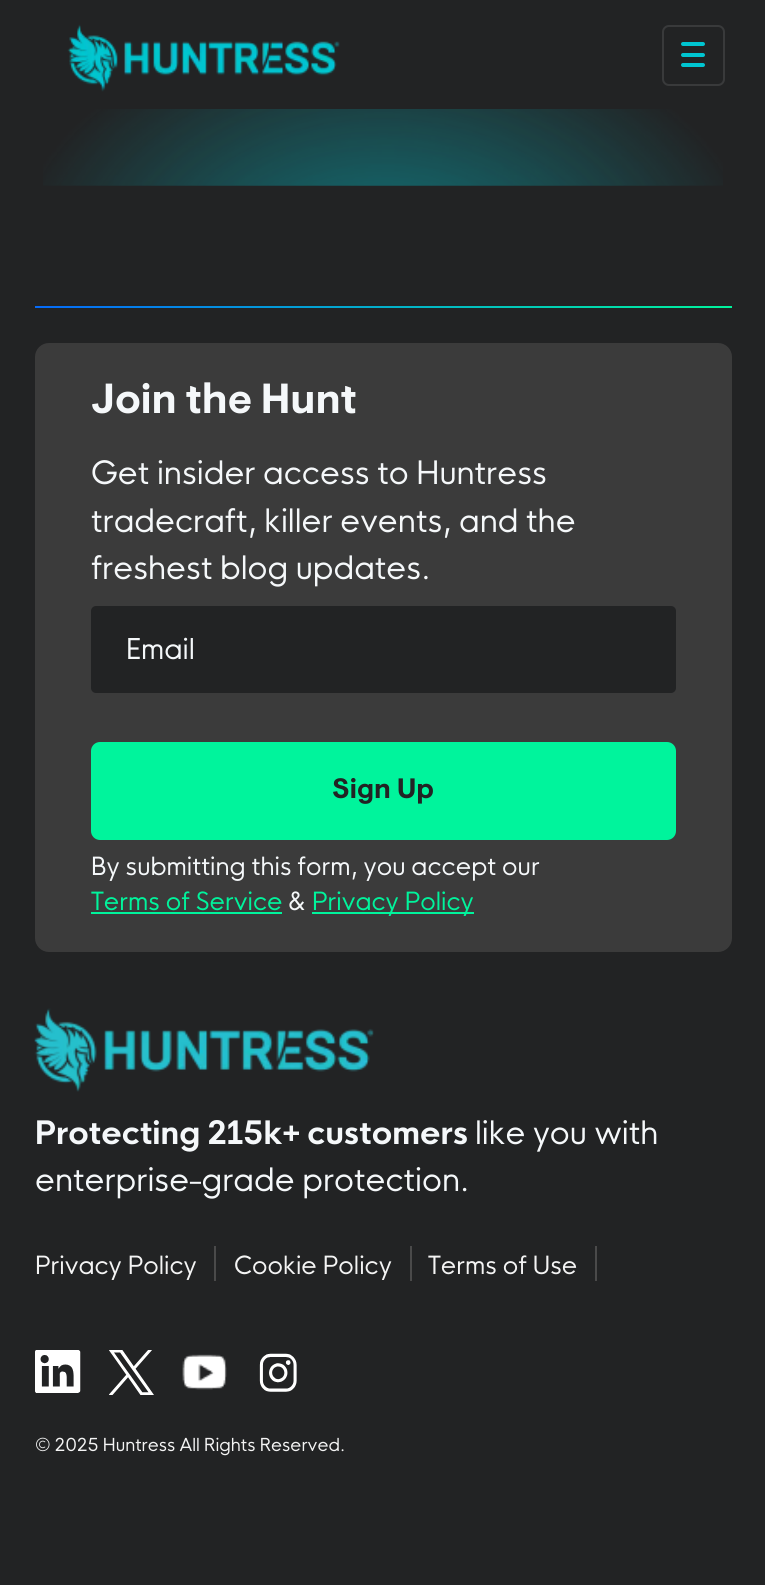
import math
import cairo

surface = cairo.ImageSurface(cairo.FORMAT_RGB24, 765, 1585)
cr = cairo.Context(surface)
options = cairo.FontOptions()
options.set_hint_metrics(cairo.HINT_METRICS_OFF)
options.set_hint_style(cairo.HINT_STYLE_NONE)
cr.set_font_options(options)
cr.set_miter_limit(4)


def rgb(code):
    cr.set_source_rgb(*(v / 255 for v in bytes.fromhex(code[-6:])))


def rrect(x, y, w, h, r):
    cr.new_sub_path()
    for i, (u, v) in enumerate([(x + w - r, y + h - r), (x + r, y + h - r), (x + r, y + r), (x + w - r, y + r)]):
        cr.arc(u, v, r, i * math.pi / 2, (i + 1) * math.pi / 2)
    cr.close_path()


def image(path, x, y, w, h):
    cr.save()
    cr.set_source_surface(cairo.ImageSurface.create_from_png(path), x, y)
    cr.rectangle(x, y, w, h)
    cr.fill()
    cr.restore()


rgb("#222324")
cr.paint()
image("img/1.png", 67, 24, 273, 68)
rrect(663, 26, 61, 59, 6)
rgb("#393a3b")
cr.stroke()
rgb("#00c5d1")
rrect(681, 42, 24, 4, 2)
cr.fill()
rrect(681, 53, 24, 4, 2)
cr.fill()
rrect(681, 63, 24, 4, 2)
cr.fill()
image("img/2.png", 43, 109, 680, 77)
gradient = cairo.LinearGradient(35, 307, 732, 307)
gradient.add_color_stop_rgba(0, 0.02, 0.416, 0.976, 1)
gradient.add_color_stop_rgba(1, 0, 0.957, 0.612, 1)
cr.set_source(gradient)
cr.rectangle(35, 306, 697, 2)
cr.fill()
rgb("#3b3b3b")
rrect(35, 343, 697, 609, 14)
cr.fill()
rgb("#222324")
rrect(91, 606, 585, 87, 5)
cr.fill()
rgb("#00f49c")
rrect(91, 742, 585, 98, 9)
cr.fill()
cr.rectangle(91, 912, 191, 2)
cr.fill()
cr.rectangle(312, 912, 162, 2)
cr.fill()
image("img/3.png", 34, 1008, 340, 84)
for x, y, w, h, color in [
    (214, 1246, 2, 35, "#4a4a4a"),
    (410, 1246, 2, 35, "#4a4a4a"),
    (595, 1246, 2, 35, "#4a4a4a"),
]:
    rgb(color)
    cr.rectangle(x, y, w, h)
    cr.fill()
image("img/4.png", 35, 1350, 46, 43)
image("img/5.png", 109, 1350, 45, 45)
image("img/6.png", 182, 1354, 45, 36)
image("img/7.png", 259, 1353, 38, 39)
cr.select_font_face("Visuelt", cairo.FONT_SLANT_NORMAL, cairo.FONT_WEIGHT_BOLD)
cr.set_font_size(42)
rgb("#f5f8fa")
cr.move_to(91, 413)
cr.show_text("Join the Hunt")
cr.select_font_face("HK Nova")
cr.set_font_size(31.5)
for x, y, s in [
    (91, 484, "Get insider access to Huntress"),
    (91, 532, "tradecraft, killer events, and the"),
    (91, 579, "freshest blog updates."),
]:
    cr.move_to(x, y)
    cr.show_text(s)
cr.set_font_size(28)
cr.move_to(126, 659)
cr.show_text("Email")
cr.select_font_face("Visuelt", cairo.FONT_SLANT_NORMAL, cairo.FONT_WEIGHT_BOLD)
rgb("#222324")
cr.move_to(332, 798)
cr.show_text("Sign Up")
cr.select_font_face("HK Nova")
cr.set_font_size(24.5)
rgb("#f5f8fa")
cr.move_to(91, 875)
cr.show_text("By submitting this form, you accept our")
rgb("#00f49c")
cr.move_to(91, 910)
cr.show_text("Terms of Service")
rgb("#f5f8fa")
cr.move_to(288, 910)
cr.show_text("&")
rgb("#00f49c")
cr.move_to(312, 910)
cr.show_text("Privacy Policy")
cr.select_font_face("HK Nova", cairo.FONT_SLANT_NORMAL, cairo.FONT_WEIGHT_BOLD)
cr.set_font_size(31.5)
rgb("#f5f8fa")
cr.move_to(35, 1144)
cr.show_text("Protecting 215k+ customers")
cr.select_font_face("HK Nova")
cr.move_to(475, 1144)
cr.show_text("like you with")
cr.move_to(35, 1191)
cr.show_text("enterprise-grade protection.")
cr.set_font_size(24.5)
rgb("#f4f4f4")
for x, y, s in [
    (35, 1274, "Privacy Policy"),
    (234, 1274, "Cookie Policy"),
    (428, 1274, "Terms of Use"),
]:
    cr.move_to(x, y)
    cr.show_text(s)
cr.set_font_size(17.5)
cr.move_to(35, 1451)
cr.show_text("© 2025 Huntress All Rights Reserved.")
surface.write_to_png("page.png")
